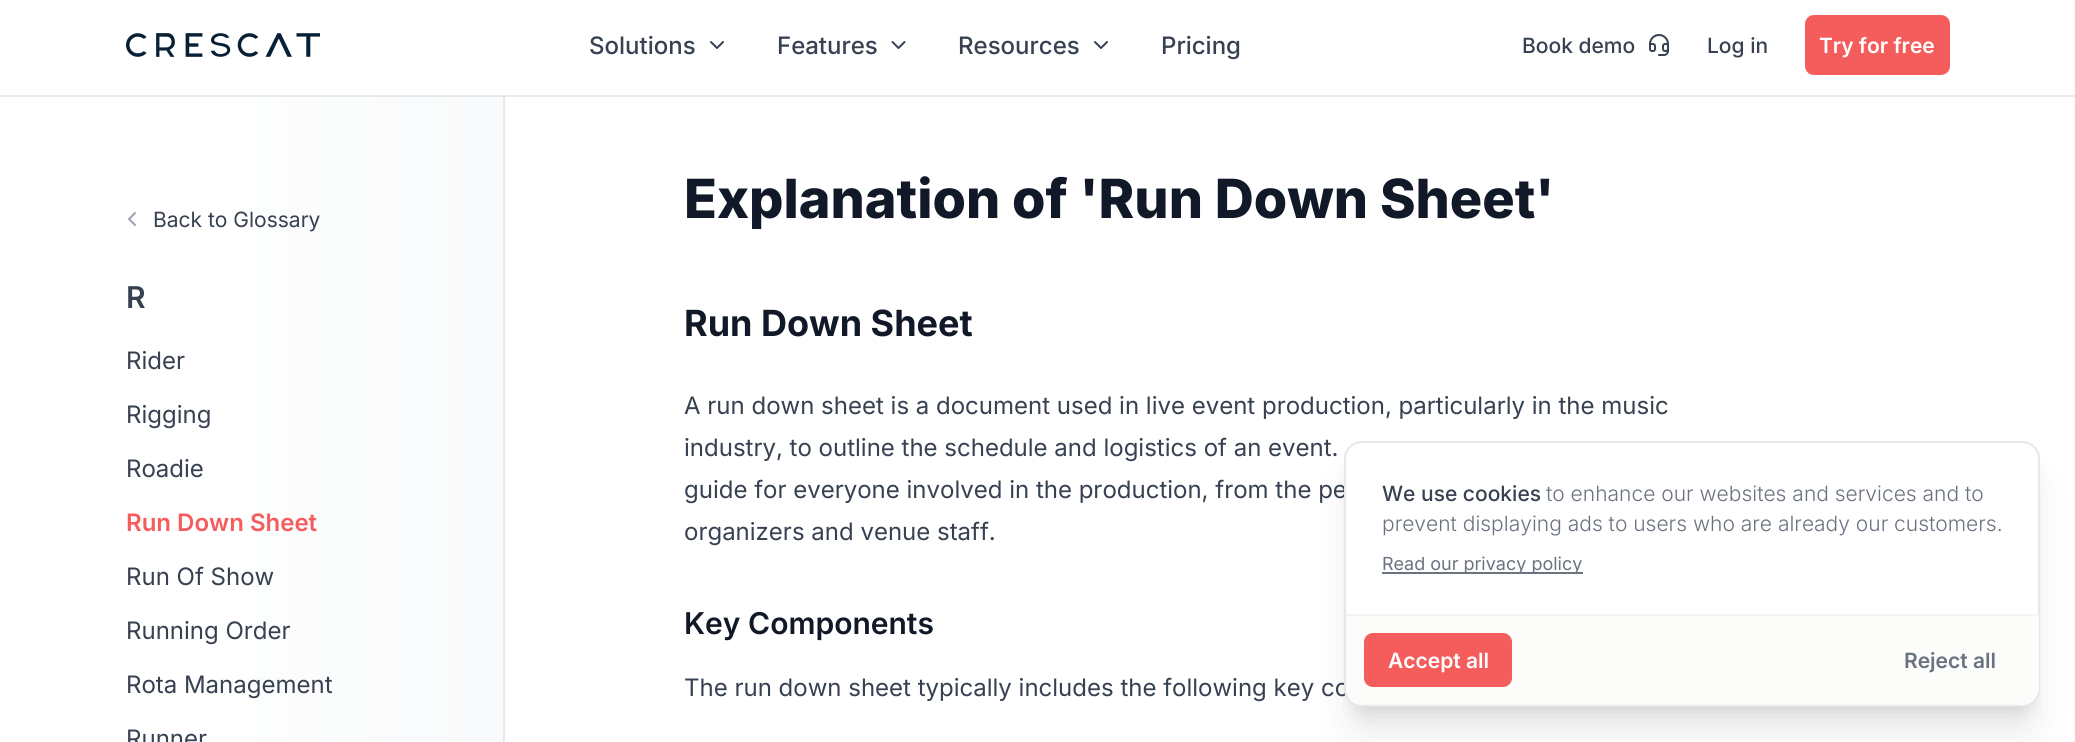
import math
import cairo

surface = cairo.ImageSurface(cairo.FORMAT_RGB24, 2075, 742)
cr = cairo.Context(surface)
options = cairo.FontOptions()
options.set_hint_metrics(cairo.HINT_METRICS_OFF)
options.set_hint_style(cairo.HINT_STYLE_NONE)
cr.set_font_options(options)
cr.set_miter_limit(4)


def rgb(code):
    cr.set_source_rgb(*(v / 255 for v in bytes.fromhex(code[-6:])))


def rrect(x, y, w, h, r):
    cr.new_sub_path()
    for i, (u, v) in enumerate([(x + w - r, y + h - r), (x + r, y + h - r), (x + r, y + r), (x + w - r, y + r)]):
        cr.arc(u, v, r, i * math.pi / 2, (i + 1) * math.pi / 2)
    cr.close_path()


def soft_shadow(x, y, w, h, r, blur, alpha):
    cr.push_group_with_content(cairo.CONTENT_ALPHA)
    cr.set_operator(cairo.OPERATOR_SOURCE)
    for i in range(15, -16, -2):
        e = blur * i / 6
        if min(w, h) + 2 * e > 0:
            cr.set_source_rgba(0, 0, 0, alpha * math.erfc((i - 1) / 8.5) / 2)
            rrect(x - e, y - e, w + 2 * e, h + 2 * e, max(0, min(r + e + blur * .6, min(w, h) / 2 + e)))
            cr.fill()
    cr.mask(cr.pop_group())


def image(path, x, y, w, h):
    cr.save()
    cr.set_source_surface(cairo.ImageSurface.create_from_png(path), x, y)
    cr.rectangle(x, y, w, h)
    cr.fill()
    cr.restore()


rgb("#ffffff")
cr.paint()
rgb("#ebecee")
cr.rectangle(0, 95, 2075, 2)
cr.fill()
image("img/1.png", 126, 33, 194, 24)
cr.new_path()
cr.move_to(711, 42)
cr.line_to(717, 48)
cr.line_to(723, 42)
rgb("#374151")
cr.set_line_cap(cairo.LINE_CAP_ROUND)
cr.set_line_join(cairo.LINE_JOIN_ROUND)
cr.stroke()
cr.new_path()
cr.move_to(892.5, 42)
cr.line_to(898.5, 48)
cr.line_to(904.5, 42)
cr.stroke()
cr.new_path()
cr.move_to(1095, 42)
cr.line_to(1101, 48)
cr.line_to(1107, 42)
cr.stroke()
image("img/2.png", 1649, 34, 20, 22)
rgb("#f55c5c")
rrect(1805, 15, 145, 60, 9)
cr.fill()
gradient = cairo.LinearGradient(503, 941, 78, 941)
gradient.add_color_stop_rgba(0, 0.976, 0.98, 0.984, 1)
gradient.add_color_stop_rgba(1, 1, 1, 1, 1)
cr.set_source(gradient)
cr.rectangle(255, 97, 248, 645)
cr.fill()
gradient = cairo.LinearGradient(503, 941, 78, 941)
gradient.add_color_stop_rgba(0, 0.902, 0.91, 0.918, 1)
gradient.add_color_stop_rgba(1, 0.922, 0.925, 0.933, 1)
cr.set_source(gradient)
cr.rectangle(291, 96, 212, 1)
cr.fill()
rgb("#e5e7eb")
cr.rectangle(503, 96, 2, 646)
cr.fill()
rgb("#d4d6dc")
cr.rectangle(503, 96, 2, 1)
cr.fill()
cr.new_path()
cr.move_to(135, 225)
cr.line_to(129, 219)
cr.line_to(135, 213)
rgb("#9ca3af")
cr.stroke()
rgb("#000000")
soft_shadow(1353, 462, 678, 248, 9, 7.5, 0.1)
soft_shadow(1352, 479, 681, 250, 11, 19, 0.1)
cr.select_font_face("Inter Medium")
cr.set_font_size(24)
rgb("#374151")
for x, y, s in [
    (589, 54, "Solutions"),
    (777, 54, "Features"),
    (958, 54, "Resources"),
    (1161, 54, "Pricing"),
]:
    cr.move_to(x, y)
    cr.show_text(s)
cr.set_font_size(21)
cr.move_to(1522, 53)
cr.show_text("Book demo")
cr.move_to(1707, 53)
cr.show_text("Log in")
cr.select_font_face("Inter SemiBold")
rgb("#ffffff")
cr.move_to(1819, 53)
cr.show_text("Try for free")
cr.select_font_face("Inter")
rgb("#374151")
cr.move_to(153, 227)
cr.show_text("Back to Glossary")
cr.select_font_face("Inter SemiBold")
cr.set_font_size(30)
cr.move_to(126, 308)
cr.show_text("R")
cr.select_font_face("Inter")
cr.set_font_size(24)
for x, y, s in [
    (126, 369, "Rider"),
    (126, 423, "Rigging"),
    (126, 477, "Roadie"),
]:
    cr.move_to(x, y)
    cr.show_text(s)
cr.select_font_face("Inter SemiBold")
rgb("#f55c5c")
cr.move_to(126, 531)
cr.show_text("Run Down Sheet")
cr.select_font_face("Inter")
rgb("#374151")
for x, y, s in [
    (126, 585, "Run Of Show"),
    (126, 639, "Running Order"),
    (126, 693, "Rota Management"),
    (126, 747, "Runner"),
]:
    cr.move_to(x, y)
    cr.show_text(s)
cr.select_font_face("Inter ExtraBold")
cr.set_font_size(54)
rgb("#111827")
cr.move_to(684, 218)
cr.show_text("Explanation of 'Run Down Sheet'")
cr.select_font_face("Inter", cairo.FONT_SLANT_NORMAL, cairo.FONT_WEIGHT_BOLD)
cr.set_font_size(36)
cr.move_to(684, 336)
cr.show_text("Run Down Sheet")
cr.select_font_face("Inter")
cr.set_font_size(24)
rgb("#374151")
for x, y, s in [
    (684, 414, "A run down sheet is a document used in live event production, particularly in the music"),
    (684, 456, "industry, to outline the schedule and logistics of an event."),
    (684, 498, "guide for everyone involved in the production, from the pe"),
    (684, 540, "organizers and venue staff."),
]:
    cr.move_to(x, y)
    cr.show_text(s)
cr.select_font_face("Inter SemiBold")
cr.set_font_size(30)
rgb("#111827")
cr.move_to(684, 634)
cr.show_text("Key Components")
cr.select_font_face("Inter")
cr.set_font_size(24)
rgb("#374151")
cr.move_to(684, 696)
cr.show_text("The run down sheet typically includes the following key co")
rgb("#ffffff")
rrect(1345, 442, 694, 264, 17)
cr.fill_preserve()
rgb("#e5e7eb")
cr.set_line_cap(cairo.LINE_CAP_BUTT)
cr.set_line_join(cairo.LINE_JOIN_MITER)
cr.stroke()
cr.select_font_face("Inter Medium")
cr.set_font_size(21)
rgb("#374151")
cr.move_to(1382, 501)
cr.show_text("We use cookies")
cr.select_font_face("Inter Light")
rgb("#6b7280")
cr.move_to(1546, 501)
cr.show_text("to enhance our websites and services and to")
cr.move_to(1382, 531)
cr.show_text("prevent displaying ads to users who are already our customers.")
cr.rectangle(1382, 572, 201, 2)
cr.fill()
cr.select_font_face("Inter")
cr.set_font_size(18)
cr.move_to(1382, 570)
cr.show_text("Read our privacy policy")
rgb("#fcfcfb")
cr.new_path()
cr.move_to(1346, 615)
cr.line_to(2039, 615)
cr.line_to(2039, 687)
cr.curve_to(2039, 697, 2031, 705, 2021, 705)
cr.line_to(1364, 705)
cr.curve_to(1354, 705, 1346, 697, 1346, 687)
cr.close_path()
cr.fill()
rgb("#f3f4f6")
cr.rectangle(1346, 614, 693, 2)
cr.fill()
rgb("#f55c5c")
rrect(1364, 633, 148, 54, 9)
cr.fill()
cr.select_font_face("Inter SemiBold")
cr.set_font_size(21)
rgb("#ffffff")
cr.move_to(1388, 668)
cr.show_text("Accept all")
rgb("#6b7280")
cr.move_to(1904, 668)
cr.show_text("Reject all")
surface.write_to_png("page.png")
